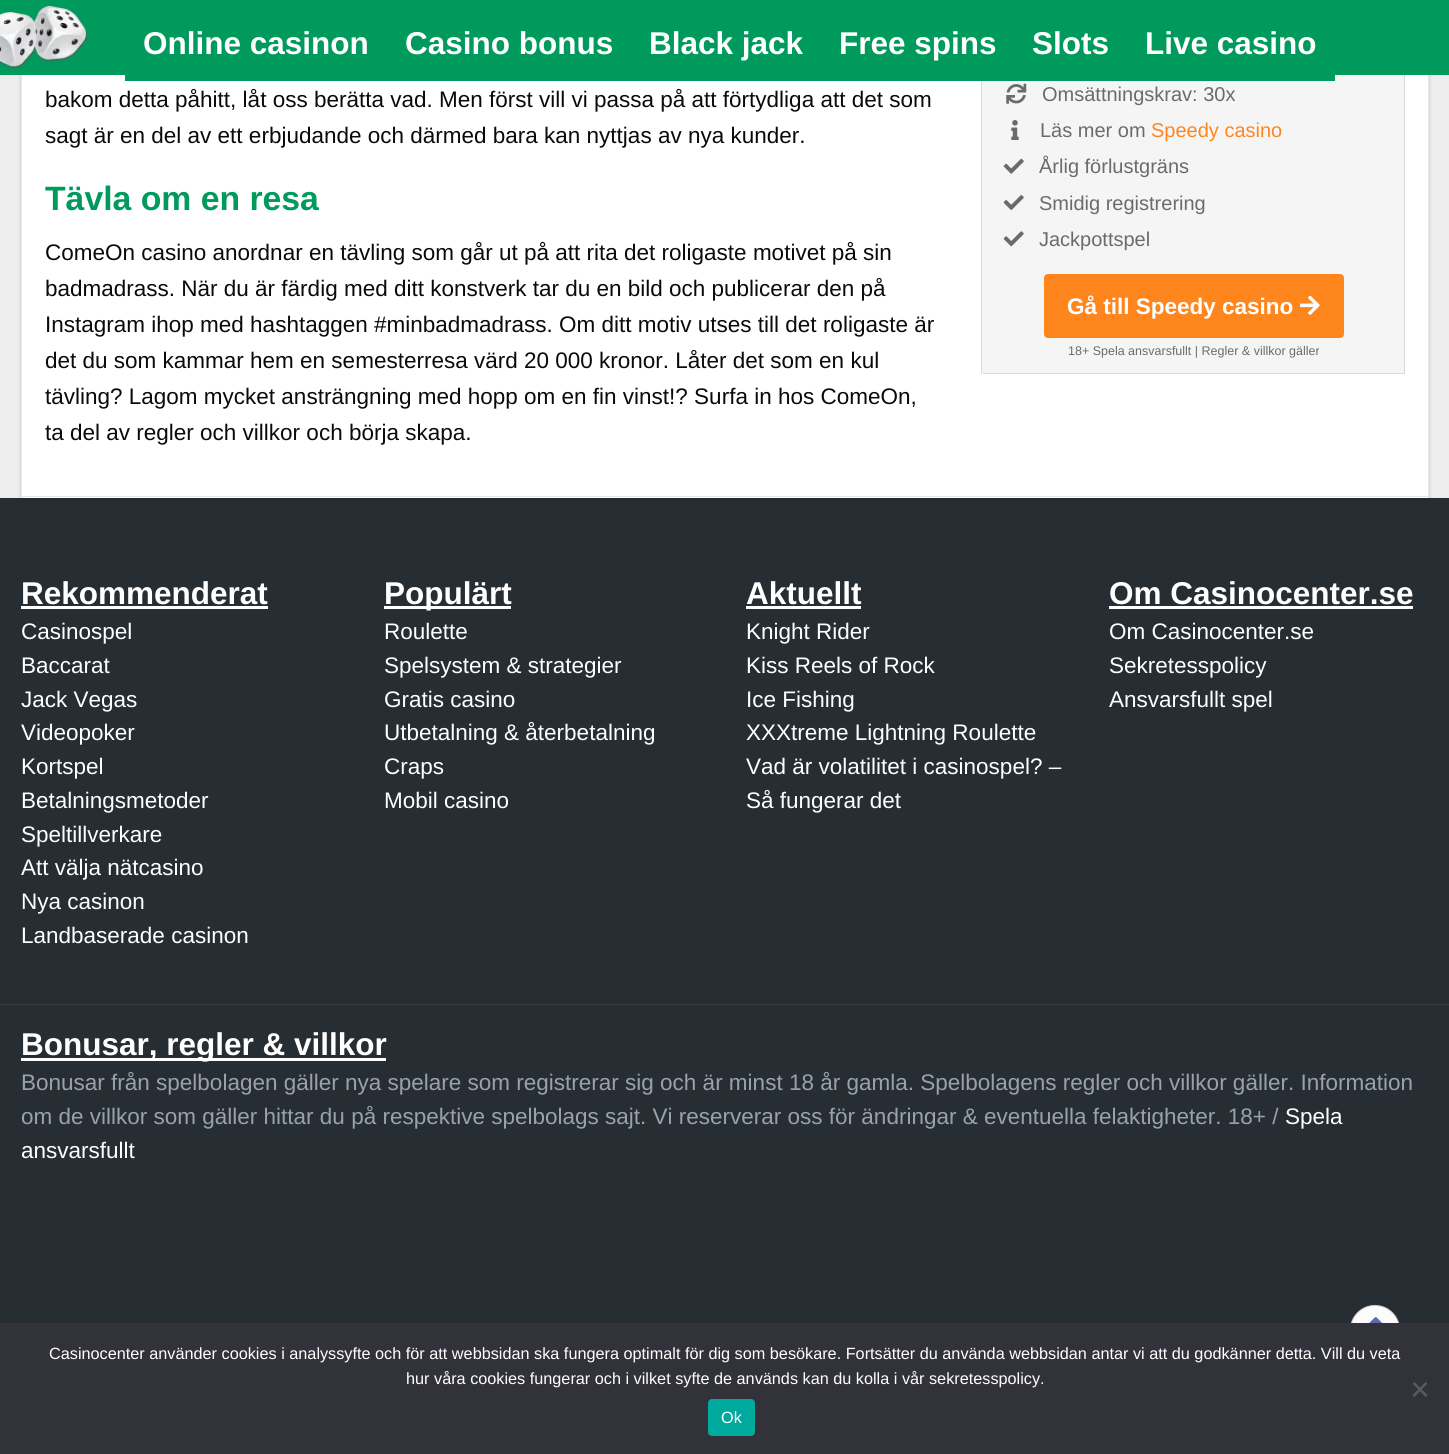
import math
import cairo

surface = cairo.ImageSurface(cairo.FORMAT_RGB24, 1449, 1454)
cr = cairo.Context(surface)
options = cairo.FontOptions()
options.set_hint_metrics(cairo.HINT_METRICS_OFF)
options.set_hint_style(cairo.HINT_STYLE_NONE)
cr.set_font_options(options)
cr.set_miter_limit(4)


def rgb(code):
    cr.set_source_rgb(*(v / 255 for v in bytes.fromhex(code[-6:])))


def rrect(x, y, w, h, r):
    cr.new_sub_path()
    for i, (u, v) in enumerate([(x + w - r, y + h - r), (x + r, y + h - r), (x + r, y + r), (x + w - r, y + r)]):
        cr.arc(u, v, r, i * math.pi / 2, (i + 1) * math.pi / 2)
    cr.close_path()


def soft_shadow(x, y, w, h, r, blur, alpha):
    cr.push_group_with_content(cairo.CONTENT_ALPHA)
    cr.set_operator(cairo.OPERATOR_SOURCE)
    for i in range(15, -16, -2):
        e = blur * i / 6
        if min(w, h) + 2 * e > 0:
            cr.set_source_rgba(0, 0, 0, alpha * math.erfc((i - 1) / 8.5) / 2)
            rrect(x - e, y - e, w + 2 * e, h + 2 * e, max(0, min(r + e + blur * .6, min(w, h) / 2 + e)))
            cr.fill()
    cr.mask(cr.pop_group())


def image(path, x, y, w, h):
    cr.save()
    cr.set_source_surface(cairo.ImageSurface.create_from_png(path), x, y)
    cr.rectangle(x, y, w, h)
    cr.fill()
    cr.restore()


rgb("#ededed")
cr.paint()
rgb("#262e33")
cr.rectangle(0, 498, 1449, 825)
cr.fill()
rgb("#000000")
soft_shadow(21, -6, 1408, 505, 0, 2, 0.16)
rgb("#009a5d")
cr.rectangle(0, 0, 1449, 75)
cr.fill()
image("img/1.png", 0, 6, 88, 63)
for x, y, w, h, color in [
    (22, 75, 1406, 423, "#ffffff"),
    (982, 75, 422, 299, "#f5f5f5"),
    (125, 75, 1210, 6, "#009a5d"),
    (1428, 75, 1, 423, "#e6e6e6"),
    (21, 496, 1408, 1, "#e6e6e6"),
    (21, 75, 1, 423, "#e6e6e6"),
    (1404, 75, 1, 299, "#dadada"),
    (981, 81, 1, 293, "#dadada"),
]:
    rgb(color)
    cr.rectangle(x, y, w, h)
    cr.fill()
image("img/2.png", 1006, 83, 21, 21)
image("img/3.png", 1011, 120, 8, 20)
image("img/4.png", 1003, 158, 21, 16)
image("img/5.png", 1003, 195, 21, 15)
image("img/6.png", 1003, 231, 21, 16)
cr.rectangle(983, 373, 421, 1)
cr.fill()
rgb("#ff861c")
rrect(1044, 274, 300, 64, 4)
cr.fill()
image("img/7.png", 1300, 295, 20, 20)
for x, y, w, h, color in [
    (21, 606, 247, 3, "#ffffff"),
    (384, 606, 127, 3, "#ffffff"),
    (746, 606, 115, 3, "#ffffff"),
    (1109, 606, 304, 3, "#ffffff"),
    (0, 1004, 1449, 1, "#383e43"),
    (21, 1058, 365, 3, "#ffffff"),
]:
    rgb(color)
    cr.rectangle(x, y, w, h)
    cr.fill()
rgb("#fcfcfc")
cr.arc(1375, 1330, 25, 0, 2 * math.pi)
cr.fill()
cr.arc(1375, 1330, 24.5, 0, 2 * math.pi)
cr.set_source_rgba(0.004, 0.004, 0.004, 0.18)
cr.set_line_width(1)
cr.stroke()
image("img/8.png", 1369, 1317, 13, 6)
rgb("#32323a")
cr.rectangle(0, 1323, 1449, 131)
cr.fill()
rgb("#59595d")
cr.new_path()
cr.move_to(1425.5, 1382)
cr.line_to(1427.5, 1383.5)
cr.line_to(1414.5, 1397)
cr.line_to(1412.5, 1395)
cr.close_path()
cr.fill()
cr.new_path()
cr.move_to(1412.5, 1383.5)
cr.line_to(1414.5, 1382)
cr.line_to(1427.5, 1395)
cr.line_to(1425.5, 1397)
cr.close_path()
cr.fill()
rgb("#00a99d")
rrect(708, 1399, 47, 37, 4)
cr.fill()
cr.select_font_face("Liberation Sans", cairo.FONT_SLANT_NORMAL, cairo.FONT_WEIGHT_BOLD)
cr.set_font_size(31.5)
rgb("#ffffff")
for x, y, s in [
    (143, 54, "Online casinon"),
    (405, 54, "Casino bonus"),
    (649, 54, "Black jack"),
    (839, 54, "Free spins"),
    (1032, 54, "Slots"),
    (1145, 54, "Live casino"),
]:
    cr.move_to(x, y)
    cr.show_text(s)
cr.select_font_face("Liberation Sans")
cr.set_font_size(22.5)
rgb("#0a0a0a")
cr.move_to(45, 107)
cr.show_text("bakom detta påhitt, låt oss berätta vad. Men först vill vi passa på att förtydliga att det som")
cr.move_to(45, 143)
cr.show_text("sagt är en del av ett erbjudande och därmed bara kan nyttjas av nya kunder.")
cr.select_font_face("Liberation Sans", cairo.FONT_SLANT_NORMAL, cairo.FONT_WEIGHT_BOLD)
cr.set_font_size(33.75)
rgb("#009a5d")
cr.move_to(45, 210)
cr.show_text("Tävla om en resa")
cr.select_font_face("Liberation Sans")
cr.set_font_size(22.5)
rgb("#0a0a0a")
for x, y, s in [
    (45, 260, "ComeOn casino anordnar en tävling som går ut på att rita det roligaste motivet på sin"),
    (45, 296, "badmadrass. När du är färdig med ditt konstverk tar du en bild och publicerar den på"),
    (45, 332, "Instagram ihop med hashtaggen #minbadmadrass. Om ditt motiv utses till det roligaste är"),
    (45, 368, "det du som kammar hem en semesterresa värd 20 000 kronor. Låter det som en kul"),
    (45, 404, "tävling? Lagom mycket ansträngning med hopp om en fin vinst!? Surfa in hos ComeOn,"),
    (45, 440, "ta del av regler och villkor och börja skapa."),
]:
    cr.move_to(x, y)
    cr.show_text(s)
cr.set_font_size(20)
rgb("#6b6b6b")
cr.move_to(1042, 101)
cr.show_text("Omsättningskrav: 30x")
cr.move_to(1040, 137)
cr.show_text("Läs mer om")
rgb("#ff861c")
cr.move_to(1151, 137)
cr.show_text("Speedy casino")
rgb("#6b6b6b")
for x, y, s in [
    (1039, 173, "Årlig förlustgräns"),
    (1039, 210, "Smidig registrering"),
    (1039, 246, "Jackpottspel"),
]:
    cr.move_to(x, y)
    cr.show_text(s)
cr.select_font_face("Liberation Sans", cairo.FONT_SLANT_NORMAL, cairo.FONT_WEIGHT_BOLD)
cr.set_font_size(22.5)
rgb("#ffffff")
cr.move_to(1067, 314)
cr.show_text("Gå till Speedy casino")
cr.select_font_face("Liberation Sans")
cr.set_font_size(12.5)
rgb("#6b6b6b")
cr.move_to(1068, 355)
cr.show_text("18+ Spela ansvarsfullt | Regler & villkor gäller")
cr.select_font_face("Liberation Sans", cairo.FONT_SLANT_NORMAL, cairo.FONT_WEIGHT_BOLD)
cr.set_font_size(31.5)
rgb("#ffffff")
cr.move_to(21, 604)
cr.show_text("Rekommenderat")
cr.select_font_face("Liberation Sans")
cr.set_font_size(22.5)
for x, y, s in [
    (21, 639, "Casinospel"),
    (21, 673, "Baccarat"),
    (21, 707, "Jack Vegas"),
    (21, 740, "Videopoker"),
    (21, 774, "Kortspel"),
    (21, 808, "Betalningsmetoder"),
    (21, 842, "Speltillverkare"),
    (21, 875, "Att välja nätcasino"),
    (21, 909, "Nya casinon"),
    (21, 943, "Landbaserade casinon"),
]:
    cr.move_to(x, y)
    cr.show_text(s)
cr.select_font_face("Liberation Sans", cairo.FONT_SLANT_NORMAL, cairo.FONT_WEIGHT_BOLD)
cr.set_font_size(31.5)
cr.move_to(384, 604)
cr.show_text("Populärt")
cr.select_font_face("Liberation Sans")
cr.set_font_size(22.5)
for x, y, s in [
    (384, 639, "Roulette"),
    (384, 673, "Spelsystem & strategier"),
    (384, 707, "Gratis casino"),
    (384, 740, "Utbetalning & återbetalning"),
    (384, 774, "Craps"),
    (384, 808, "Mobil casino"),
]:
    cr.move_to(x, y)
    cr.show_text(s)
cr.select_font_face("Liberation Sans", cairo.FONT_SLANT_NORMAL, cairo.FONT_WEIGHT_BOLD)
cr.set_font_size(31.5)
cr.move_to(746, 604)
cr.show_text("Aktuellt")
cr.select_font_face("Liberation Sans")
cr.set_font_size(22.5)
for x, y, s in [
    (746, 639, "Knight Rider"),
    (746, 673, "Kiss Reels of Rock"),
    (746, 707, "Ice Fishing"),
    (746, 740, "XXXtreme Lightning Roulette"),
    (746, 774, "Vad är volatilitet i casinospel? –"),
    (746, 808, "Så fungerar det"),
]:
    cr.move_to(x, y)
    cr.show_text(s)
cr.select_font_face("Liberation Sans", cairo.FONT_SLANT_NORMAL, cairo.FONT_WEIGHT_BOLD)
cr.set_font_size(31.5)
cr.move_to(1109, 604)
cr.show_text("Om Casinocenter.se")
cr.select_font_face("Liberation Sans")
cr.set_font_size(22.5)
for x, y, s in [
    (1109, 639, "Om Casinocenter.se"),
    (1109, 673, "Sekretesspolicy"),
    (1109, 707, "Ansvarsfullt spel"),
]:
    cr.move_to(x, y)
    cr.show_text(s)
cr.select_font_face("Liberation Sans", cairo.FONT_SLANT_NORMAL, cairo.FONT_WEIGHT_BOLD)
cr.set_font_size(31.5)
cr.move_to(21, 1055)
cr.show_text("Bonusar, regler & villkor")
cr.select_font_face("Liberation Sans")
cr.set_font_size(22.5)
rgb("#9aa1ab")
cr.move_to(21, 1090)
cr.show_text("Bonusar från spelbolagen gäller nya spelare som registrerar sig och är minst 18 år gamla. Spelbolagens regler och villkor gäller. Information")
cr.move_to(21, 1124)
cr.show_text("om de villkor som gäller hittar du på respektive spelbolags sajt. Vi reserverar oss för ändringar & eventuella felaktigheter. 18+ /")
rgb("#ffffff")
cr.move_to(1285, 1124)
cr.show_text("Spela")
cr.move_to(21, 1158)
cr.show_text("ansvarsfullt")
cr.set_font_size(16.25)
for x, y, s in [
    (49, 1359, "Casinocenter använder cookies i analyssyfte och för att webbsidan ska fungera optimalt för dig som besökare. Fortsätter du använda webbsidan antar vi att du godkänner detta. Vill du veta"),
    (406, 1384, "hur våra cookies fungerar och i vilket syfte de används kan du kolla i vår sekretesspolicy."),
    (721, 1423, "Ok"),
]:
    cr.move_to(x, y)
    cr.show_text(s)
surface.write_to_png("page.png")
